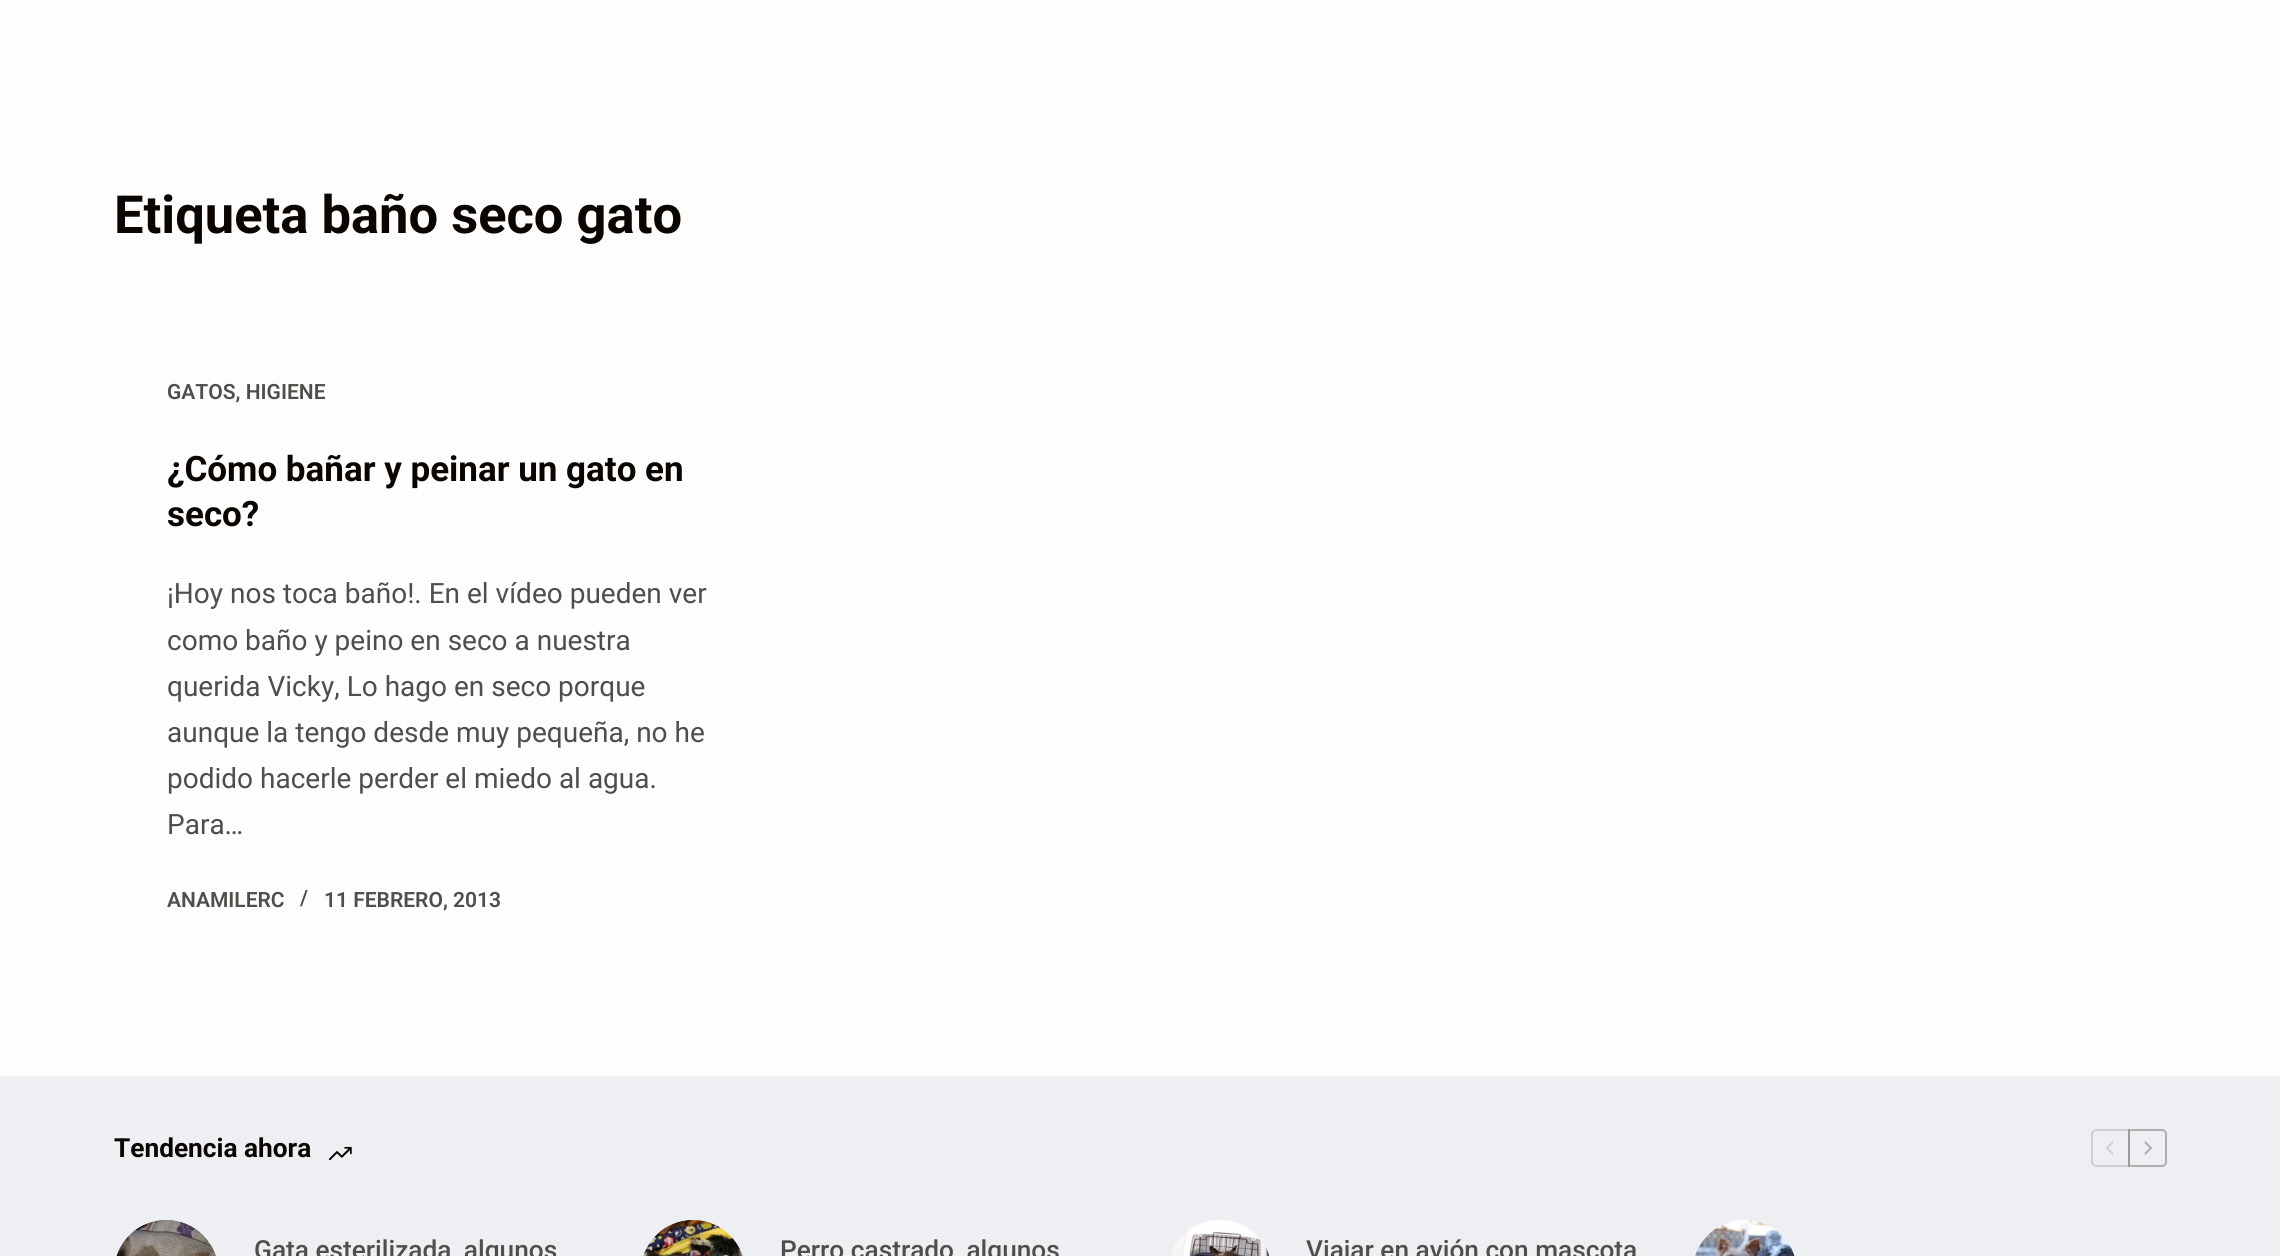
import math
import cairo

surface = cairo.ImageSurface(cairo.FORMAT_RGB24, 2280, 1256)
cr = cairo.Context(surface)
options = cairo.FontOptions()
options.set_hint_metrics(cairo.HINT_METRICS_OFF)
options.set_hint_style(cairo.HINT_STYLE_NONE)
cr.set_font_options(options)
cr.set_miter_limit(4)


def rgb(code):
    cr.set_source_rgb(*(v / 255 for v in bytes.fromhex(code[-6:])))


def image(path, x, y, w, h):
    cr.save()
    cr.set_source_surface(cairo.ImageSurface.create_from_png(path), x, y)
    cr.rectangle(x, y, w, h)
    cr.fill()
    cr.restore()


rgb("#fdfdfd")
cr.paint()
rgb("#edeff2")
cr.rectangle(0, 1076, 2280, 180)
cr.fill()
image("img/1.png", 329, 1146, 23, 14)
cr.new_path()
cr.move_to(2096, 1130)
cr.line_to(2129, 1130)
cr.line_to(2129, 1166)
cr.line_to(2096, 1166)
cr.curve_to(2094, 1166, 2092, 1164, 2092, 1162)
cr.line_to(2092, 1134)
cr.curve_to(2092, 1132, 2094, 1130, 2096, 1130)
cr.close_path()
rgb("#cecfd0")
cr.stroke()
image("img/2.png", 2105, 1141, 9, 14)
cr.new_path()
cr.move_to(2129, 1130)
cr.line_to(2162, 1130)
cr.curve_to(2164, 1130, 2166, 1132, 2166, 1134)
cr.line_to(2166, 1162)
cr.curve_to(2166, 1164, 2164, 1166, 2162, 1166)
cr.line_to(2129, 1166)
cr.close_path()
cr.set_source_rgba(0.314, 0.306, 0.29, 0.4)
cr.stroke()
image("img/3.png", 2144, 1141, 9, 14)
image("img/4.png", 116, 1220, 100, 36)
image("img/5.png", 643, 1220, 100, 36)
image("img/6.png", 1170, 1220, 100, 36)
image("img/7.png", 1695, 1220, 100, 36)
cr.select_font_face("Roboto", cairo.FONT_SLANT_NORMAL, cairo.FONT_WEIGHT_BOLD)
cr.set_font_size(52.5)
rgb("#0a0500")
cr.move_to(114, 233)
cr.show_text("Etiqueta baño seco gato")
cr.select_font_face("Roboto SemiBold")
cr.set_font_size(21)
rgb("#504e4a")
cr.move_to(167, 399)
cr.show_text("GATOS, HIGIENE")
cr.select_font_face("Roboto", cairo.FONT_SLANT_NORMAL, cairo.FONT_WEIGHT_BOLD)
cr.set_font_size(35)
rgb("#0a0500")
cr.move_to(167, 481)
cr.show_text("¿Cómo bañar y peinar un gato en")
cr.move_to(167, 526)
cr.show_text("seco?")
cr.select_font_face("Roboto")
cr.set_font_size(28)
rgb("#504e4a")
for x, y, s in [
    (167, 603, "¡Hoy nos toca baño!. En el vídeo pueden ver"),
    (167, 650, "como baño y peino en seco a nuestra"),
    (167, 696, "querida Vicky, Lo hago en seco porque"),
    (167, 742, "aunque la tengo desde muy pequeña, no he"),
    (167, 788, "podido hacerle perder el miedo al agua."),
    (167, 834, "Para…"),
]:
    cr.move_to(x, y)
    cr.show_text(s)
cr.select_font_face("Roboto SemiBold")
cr.set_font_size(21)
for x, y, s in [
    (167, 907, "ANAMILERC"),
    (300, 905, "/"),
    (324, 907, "11 FEBRERO, 2013"),
]:
    cr.move_to(x, y)
    cr.show_text(s)
cr.select_font_face("Roboto", cairo.FONT_SLANT_NORMAL, cairo.FONT_WEIGHT_BOLD)
cr.set_font_size(26.25)
rgb("#0a0500")
cr.move_to(114, 1157)
cr.show_text("Tendencia ahora")
cr.select_font_face("Roboto Medium")
rgb("#504e4a")
for x, y, s in [
    (254, 1259, "Gata esterilizada, algunos"),
    (780, 1259, "Perro castrado, algunos"),
    (1306, 1259, "Viajar en avión con mascota"),
]:
    cr.move_to(x, y)
    cr.show_text(s)
surface.write_to_png("page.png")
